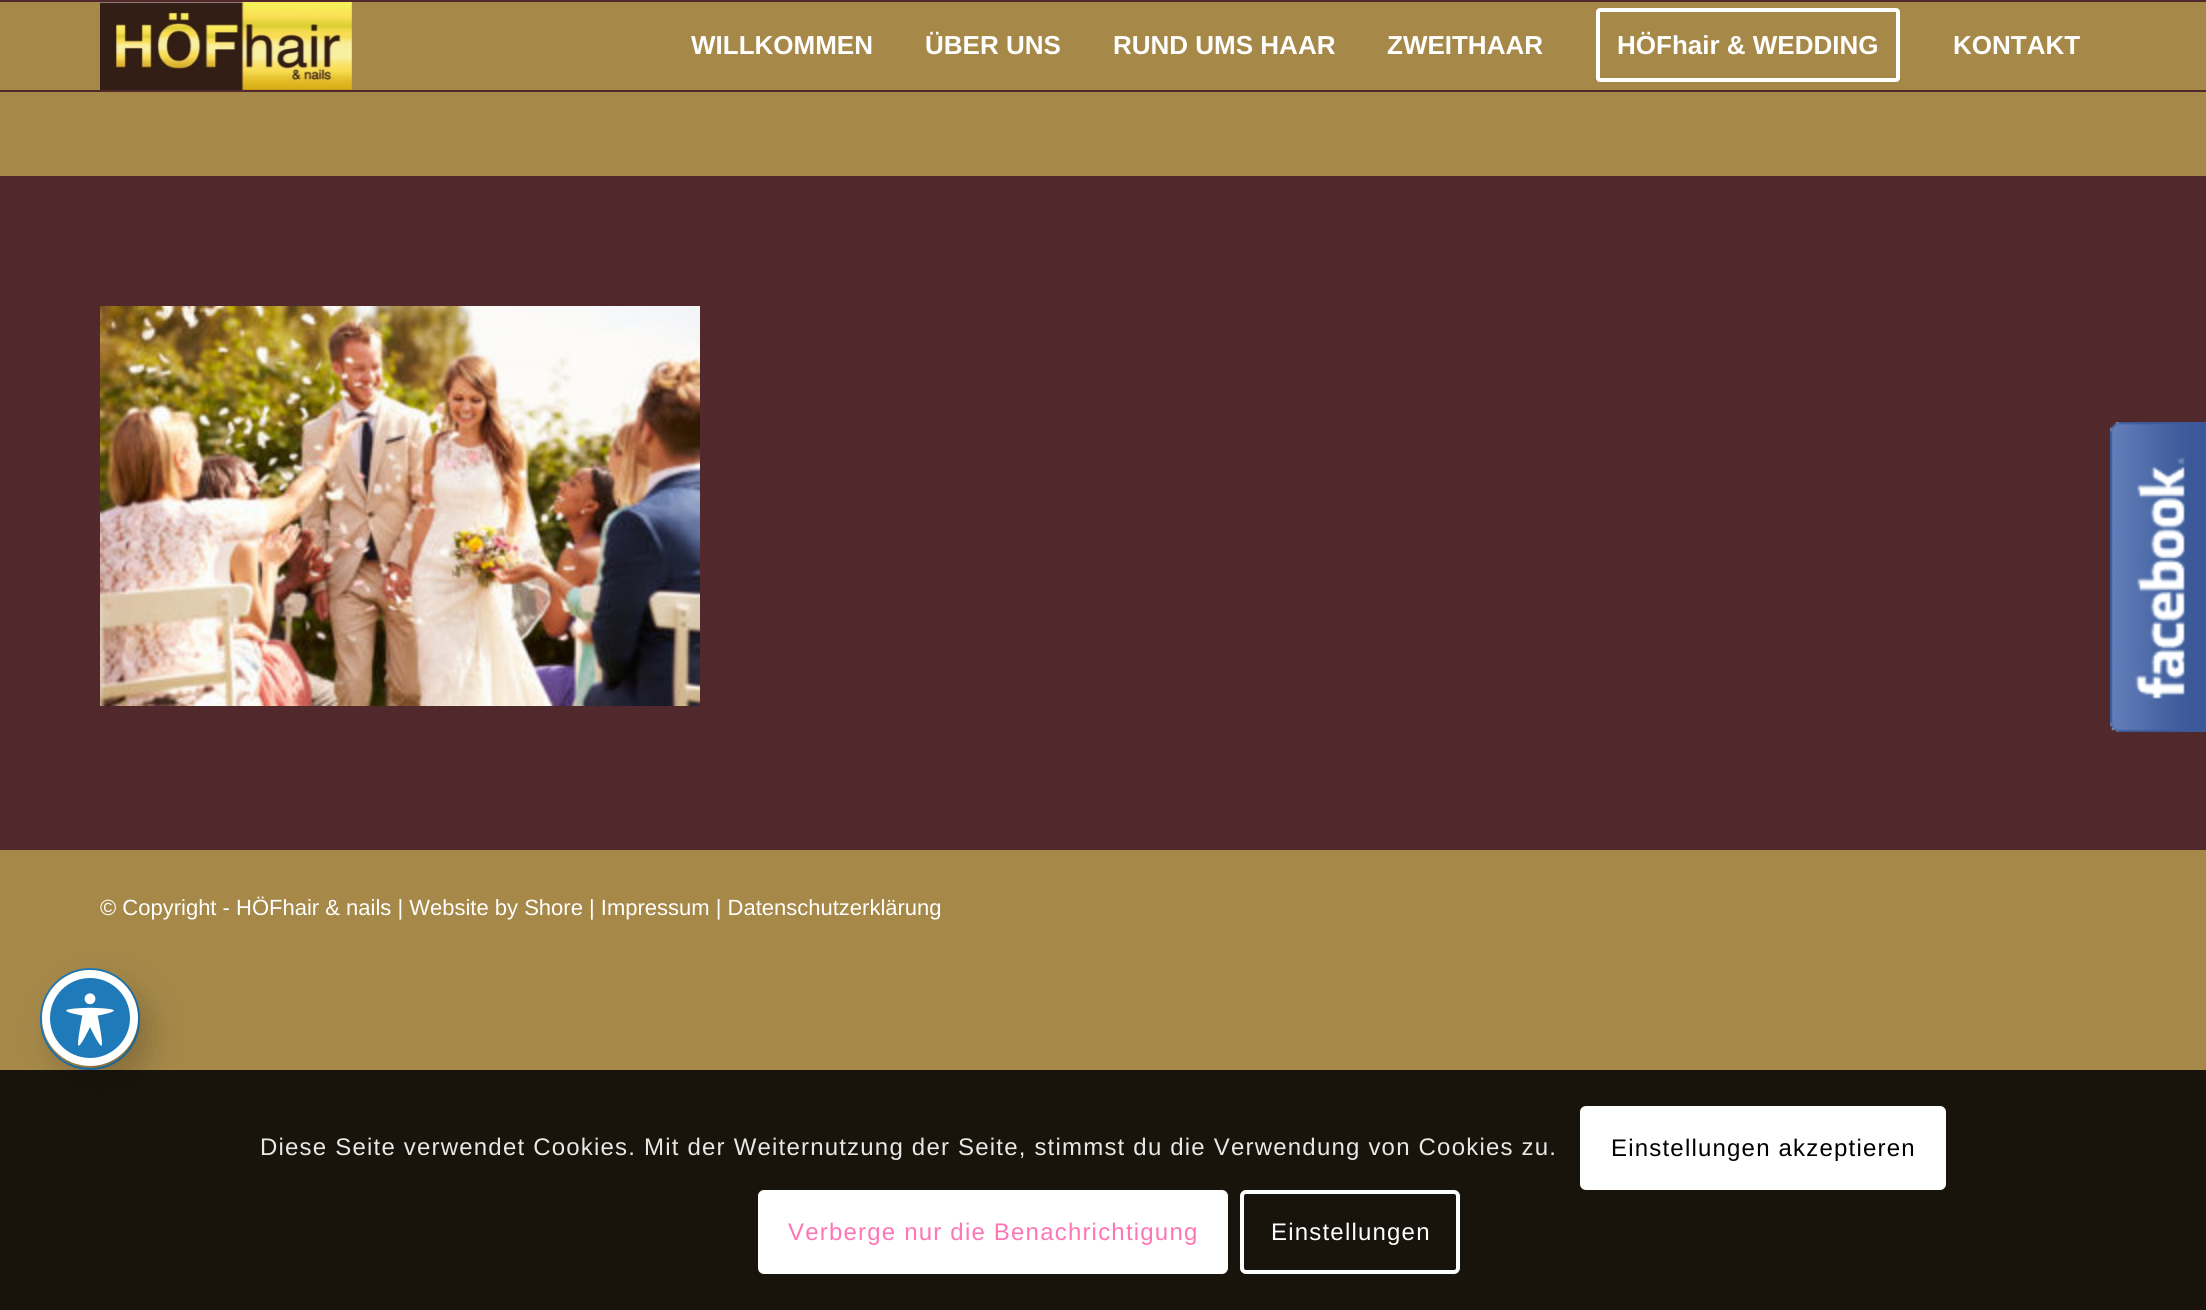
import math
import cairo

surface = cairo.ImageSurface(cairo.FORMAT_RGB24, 2206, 1310)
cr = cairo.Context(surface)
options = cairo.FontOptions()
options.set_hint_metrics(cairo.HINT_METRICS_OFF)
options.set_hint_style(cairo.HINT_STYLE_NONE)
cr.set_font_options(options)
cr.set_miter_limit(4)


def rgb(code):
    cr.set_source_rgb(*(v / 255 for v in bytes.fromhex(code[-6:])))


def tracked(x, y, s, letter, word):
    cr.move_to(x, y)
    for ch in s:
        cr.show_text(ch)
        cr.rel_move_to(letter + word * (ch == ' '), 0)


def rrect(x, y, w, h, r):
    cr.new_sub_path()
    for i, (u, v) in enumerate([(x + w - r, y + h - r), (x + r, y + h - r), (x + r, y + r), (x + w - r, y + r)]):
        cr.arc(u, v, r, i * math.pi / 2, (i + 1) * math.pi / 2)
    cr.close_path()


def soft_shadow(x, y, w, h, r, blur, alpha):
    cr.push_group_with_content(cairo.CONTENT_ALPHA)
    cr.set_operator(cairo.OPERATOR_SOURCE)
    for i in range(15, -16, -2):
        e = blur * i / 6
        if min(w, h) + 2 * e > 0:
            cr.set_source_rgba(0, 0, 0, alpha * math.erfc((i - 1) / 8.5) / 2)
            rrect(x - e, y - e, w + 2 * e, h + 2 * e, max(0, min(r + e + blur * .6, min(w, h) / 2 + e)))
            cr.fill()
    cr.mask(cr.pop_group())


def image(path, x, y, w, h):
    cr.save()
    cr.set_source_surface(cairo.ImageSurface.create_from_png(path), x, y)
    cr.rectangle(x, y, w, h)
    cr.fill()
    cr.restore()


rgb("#a68949")
cr.paint()
rgb("#51282c")
cr.rectangle(0, 0, 2206, 2)
cr.fill()
cr.rectangle(0, 90, 2206, 2)
cr.fill()
image("img/1.png", 100, 2, 252, 88)
rrect(1598, 10, 300, 70, 2)
rgb("#ffffff")
cr.set_line_width(4)
cr.stroke()
rgb("#51282c")
cr.rectangle(0, 176, 2206, 674)
cr.fill()
image("img/2.png", 100, 306, 600, 400)
image("img/3.png", 2110, 422, 96, 310)
rrect(41, 969, 98, 100, 49)
rgb("#1e7ab9")
cr.set_line_width(2)
cr.stroke()
rgb("#19140b")
cr.rectangle(0, 1070, 2206, 240)
cr.fill()
rgb("#000000")
soft_shadow(54, 986, 96, 96, 48, 16, 0.2)
rgb("#1e7ab9")
cr.arc(90, 1018, 44, 0, 2 * math.pi)
cr.fill_preserve()
rgb("#ffffff")
cr.set_line_width(8)
cr.stroke()
image("img/4.png", 66, 993, 48, 53)
rrect(1580, 1106, 366, 84, 6)
cr.fill()
rrect(760, 1192, 466, 80, 4)
cr.fill_preserve()
cr.set_line_width(4)
cr.stroke()
rrect(1242, 1192, 216, 80, 4)
cr.stroke()
cr.select_font_face("Liberation Sans", cairo.FONT_SLANT_NORMAL, cairo.FONT_WEIGHT_BOLD)
cr.set_font_size(26)
for x, y, s in [
    (691, 54, "WILLKOMMEN"),
    (925, 54, "ÜBER UNS"),
    (1113, 54, "RUND UMS HAAR"),
    (1387, 54, "ZWEITHAAR"),
    (1617, 54, "HÖFhair & WEDDING"),
    (1953, 54, "KONTAKT"),
]:
    cr.move_to(x, y)
    cr.show_text(s)
cr.select_font_face("Liberation Sans")
cr.set_font_size(22)
cr.move_to(100, 915)
cr.show_text("© Copyright - HÖFhair & nails | Website by Shore | Impressum | Datenschutzerklärung")
cr.set_font_size(24)
rgb("#e8e8e7")
tracked(260, 1155, "Diese Seite verwendet Cookies. Mit der Weiternutzung der Seite, stimmst du die Verwendung von Cookies zu.", 1.2, 0)
rgb("#000000")
tracked(1611, 1156, "Einstellungen akzeptieren", 1.2, 0)
rgb("#ff75b5")
tracked(788, 1240, "Verberge nur die Benachrichtigung", 1.2, 0)
rgb("#ffffff")
tracked(1271, 1240, "Einstellungen", 1.2, 0)
surface.write_to_png("page.png")
